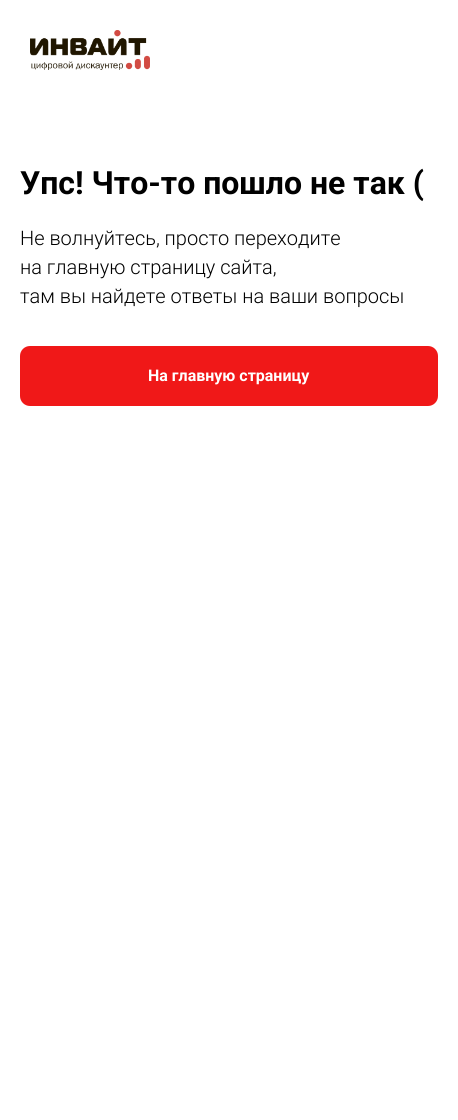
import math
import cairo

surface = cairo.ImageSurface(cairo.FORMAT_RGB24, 458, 1120)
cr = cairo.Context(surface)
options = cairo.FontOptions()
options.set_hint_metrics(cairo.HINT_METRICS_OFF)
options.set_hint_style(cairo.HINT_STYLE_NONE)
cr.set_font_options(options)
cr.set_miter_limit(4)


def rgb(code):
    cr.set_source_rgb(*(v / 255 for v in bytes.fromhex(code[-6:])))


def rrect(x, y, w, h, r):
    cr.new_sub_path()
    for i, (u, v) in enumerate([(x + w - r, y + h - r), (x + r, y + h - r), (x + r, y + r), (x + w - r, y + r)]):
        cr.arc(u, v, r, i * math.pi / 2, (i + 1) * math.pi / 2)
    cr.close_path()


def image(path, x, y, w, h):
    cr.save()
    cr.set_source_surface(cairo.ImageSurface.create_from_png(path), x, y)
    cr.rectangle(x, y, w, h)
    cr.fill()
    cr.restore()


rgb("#ffffff")
cr.paint()
image("img/1.png", 30, 30, 120, 40)
rgb("#f01818")
rrect(20, 346, 418, 60, 10)
cr.fill()
cr.select_font_face("Roboto", cairo.FONT_SLANT_NORMAL, cairo.FONT_WEIGHT_BOLD)
cr.set_font_size(32)
rgb("#000000")
cr.move_to(20, 194)
cr.show_text("Упс! Что-то пошло не так (")
cr.select_font_face("Roboto Light")
cr.set_font_size(20)
for x, y, s in [
    (20, 245, "Не волнуйтесь, просто переходите"),
    (20, 274, "на главную страницу сайта,"),
    (20, 303, "там вы найдете ответы на ваши вопросы"),
]:
    cr.move_to(x, y)
    cr.show_text(s)
cr.select_font_face("Roboto", cairo.FONT_SLANT_NORMAL, cairo.FONT_WEIGHT_BOLD)
cr.set_font_size(16)
rgb("#ffffff")
cr.move_to(148, 381)
cr.show_text("На главную страницу")
surface.write_to_png("page.png")
